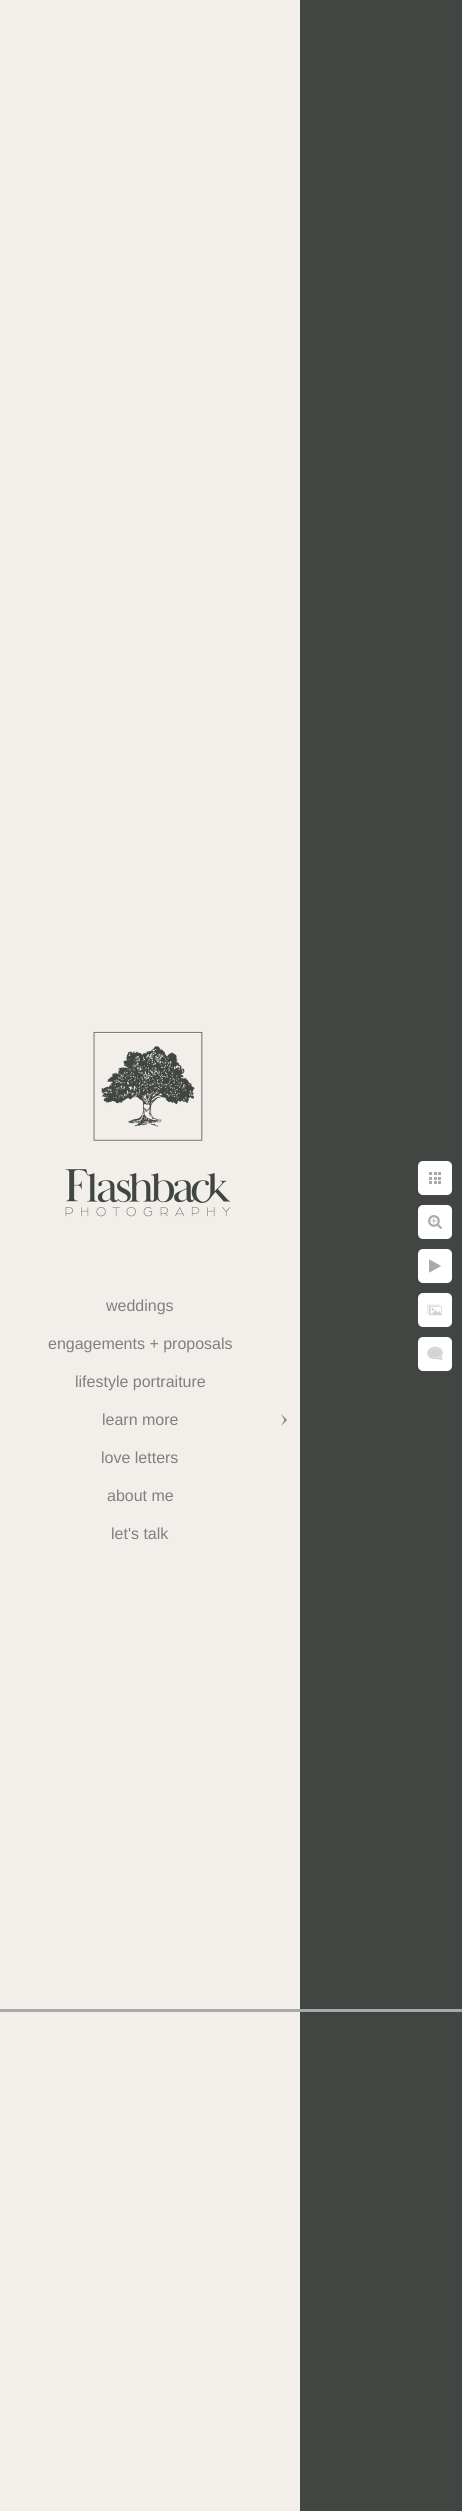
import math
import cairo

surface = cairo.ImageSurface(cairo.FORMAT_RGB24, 462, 2511)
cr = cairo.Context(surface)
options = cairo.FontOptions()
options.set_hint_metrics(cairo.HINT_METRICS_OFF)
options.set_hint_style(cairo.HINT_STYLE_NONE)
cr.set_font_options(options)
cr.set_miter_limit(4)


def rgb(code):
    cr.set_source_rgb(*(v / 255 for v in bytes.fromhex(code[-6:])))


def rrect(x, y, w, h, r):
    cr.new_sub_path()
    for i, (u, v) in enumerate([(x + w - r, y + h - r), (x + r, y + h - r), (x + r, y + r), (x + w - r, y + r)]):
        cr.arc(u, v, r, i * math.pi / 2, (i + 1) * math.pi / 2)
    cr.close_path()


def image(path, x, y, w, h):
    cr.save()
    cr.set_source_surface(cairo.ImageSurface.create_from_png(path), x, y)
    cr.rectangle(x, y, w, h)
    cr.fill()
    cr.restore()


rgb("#414642")
cr.paint()
rgb("#ffffff")
rrect(418, 1161, 34, 34, 5)
cr.fill()
image("img/1.png", 429, 1172, 12, 12)
rrect(418, 1205, 34, 34, 5)
cr.fill()
image("img/2.png", 428, 1215, 14, 14)
rrect(418, 1249, 34, 34, 5)
cr.fill()
image("img/3.png", 429, 1259, 12, 14)
rrect(418, 1293, 34, 34, 5)
cr.fill()
image("img/4.png", 427, 1304, 15, 12)
rrect(418, 1337, 34, 34, 5)
cr.fill()
image("img/5.png", 427, 1346, 16, 14)
rgb("#f2efea")
cr.rectangle(0, 0, 300, 2511)
cr.fill()
image("img/6.png", 65, 1031, 166, 187)
rgb("#808080")
cr.new_path()
cr.move_to(281, 1414)
cr.line_to(287, 1420)
cr.line_to(281, 1426)
cr.line_to(284.5, 1420)
cr.close_path()
cr.fill()
rgb("#a9a9a9")
cr.rectangle(0, 2009, 462, 3)
cr.fill()
cr.select_font_face("Liberation Sans")
cr.set_font_size(16)
rgb("#808080")
for x, y, s in [
    (106, 1311, "weddings"),
    (48, 1349, "engagements + proposals"),
    (75, 1387, "lifestyle portraiture"),
    (102, 1425, "learn more"),
    (101, 1463, "love letters"),
    (107, 1501, "about me"),
    (111, 1539, "let's talk"),
]:
    cr.move_to(x, y)
    cr.show_text(s)
surface.write_to_png("page.png")
